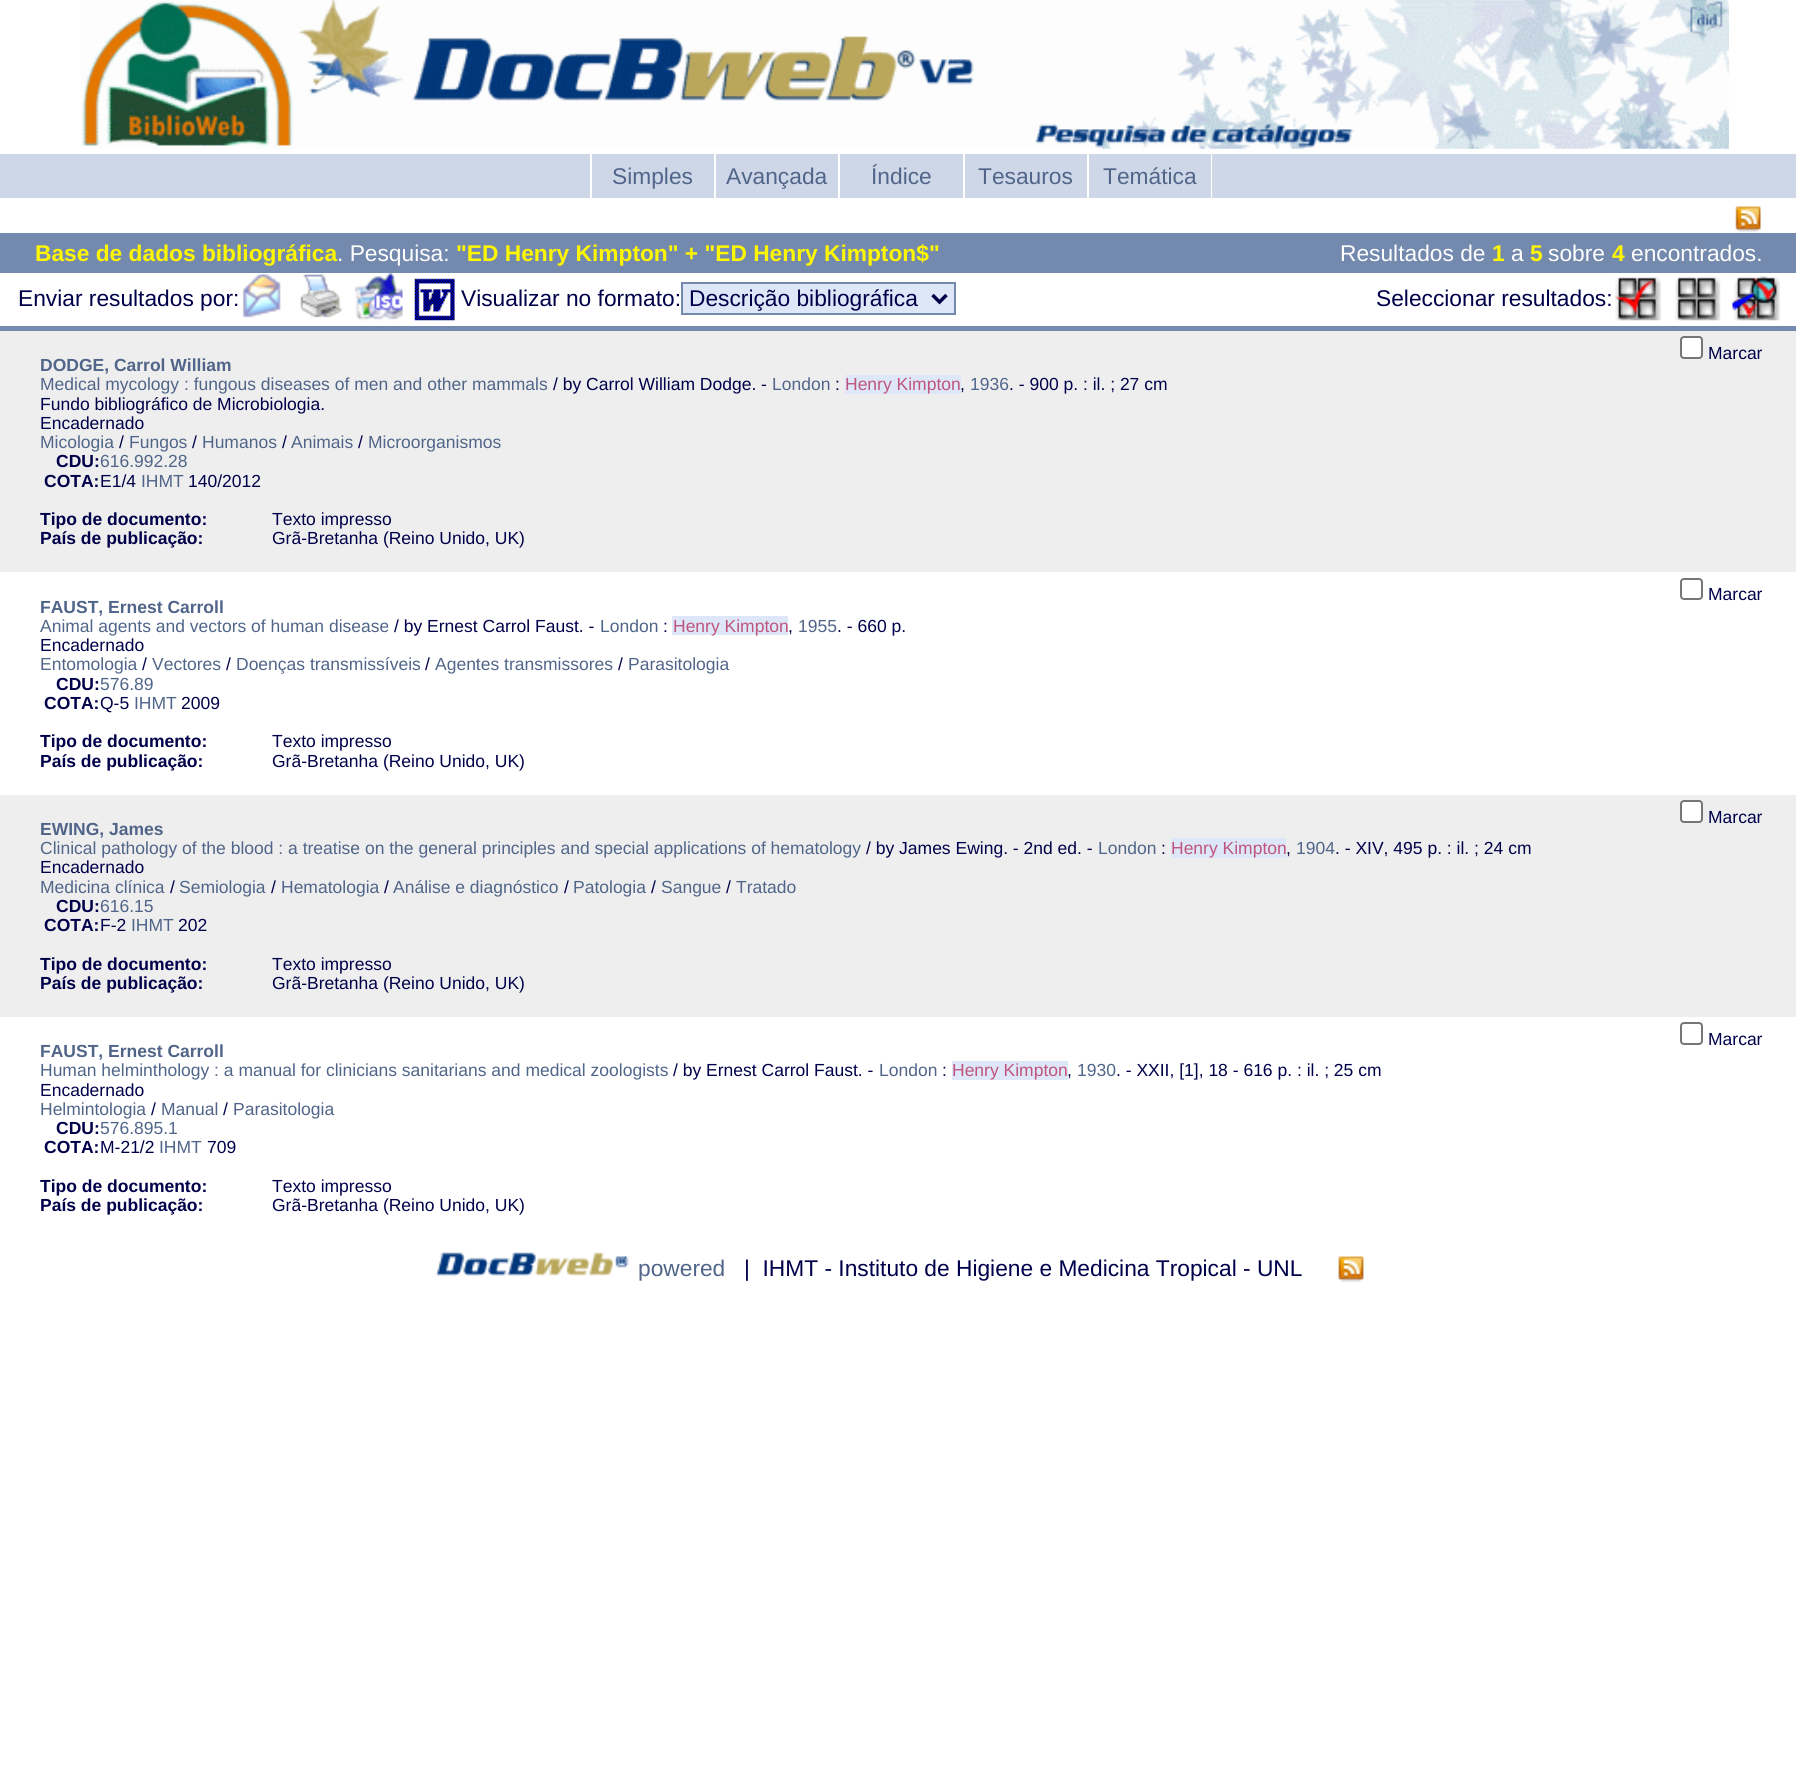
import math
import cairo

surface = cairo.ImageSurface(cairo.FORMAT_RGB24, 1796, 1783)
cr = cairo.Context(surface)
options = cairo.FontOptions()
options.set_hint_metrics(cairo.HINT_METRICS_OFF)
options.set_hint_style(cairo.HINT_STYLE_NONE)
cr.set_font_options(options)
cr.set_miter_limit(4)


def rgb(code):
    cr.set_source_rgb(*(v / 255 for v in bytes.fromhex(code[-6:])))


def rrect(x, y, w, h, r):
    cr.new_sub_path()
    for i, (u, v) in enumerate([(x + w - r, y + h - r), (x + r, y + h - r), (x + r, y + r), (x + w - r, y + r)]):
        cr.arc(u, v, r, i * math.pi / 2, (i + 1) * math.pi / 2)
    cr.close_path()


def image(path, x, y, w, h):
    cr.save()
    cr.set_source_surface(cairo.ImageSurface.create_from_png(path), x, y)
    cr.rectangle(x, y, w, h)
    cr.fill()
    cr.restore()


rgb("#ffffff")
cr.paint()
image("img/1.png", 81, 0, 1648, 149)
for x, y, w, h, color in [
    (0, 154, 590, 44, "#ced7e7"),
    (592, 154, 122, 44, "#ced7e7"),
    (716, 154, 122, 44, "#ced7e7"),
    (840, 154, 123, 44, "#ced7e7"),
    (965, 154, 122, 44, "#ced7e7"),
    (1089, 154, 122, 44, "#ced7e7"),
    (1212, 154, 584, 44, "#ced7e7"),
]:
    rgb(color)
    cr.rectangle(x, y, w, h)
    cr.fill()
image("img/2.png", 1735, 206, 26, 27)
rgb("#7389ae")
cr.rectangle(0, 233, 1796, 40)
cr.fill()
image("img/3.png", 241, 273, 40, 45)
image("img/4.png", 300, 274, 42, 44)
image("img/5.png", 355, 273, 48, 48)
image("img/6.png", 414, 278, 41, 43)
rgb("#dee7f7")
cr.rectangle(682, 283, 273, 31)
cr.fill_preserve()
rgb("#7389ae")
cr.stroke()
cr.new_path()
cr.move_to(932.5, 295)
cr.line_to(939.5, 302)
cr.line_to(946.5, 295)
rgb("#00004a")
cr.set_line_width(3.5)
cr.stroke()
image("img/7.png", 1615, 276, 46, 45)
image("img/8.png", 1675, 276, 46, 45)
image("img/9.png", 1732, 276, 48, 45)
rgb("#7389ae")
cr.rectangle(0, 326, 1796, 5)
cr.fill()
rgb("#eeeeee")
cr.rectangle(0, 331, 1796, 241)
cr.fill()
rgb("#ffffff")
rrect(1681, 337, 21, 21, 3)
cr.fill_preserve()
rgb("#767676")
cr.set_line_width(2)
cr.stroke()
rgb("#dee7f7")
cr.rectangle(845, 375, 116, 19)
cr.fill()
rrect(1681, 579, 21, 20, 3)
rgb("#767676")
cr.stroke()
rgb("#dee7f7")
cr.rectangle(672, 616, 116, 19)
cr.fill()
rgb("#eeeeee")
cr.rectangle(0, 795, 1796, 222)
cr.fill()
rgb("#ffffff")
rrect(1681, 801, 21, 21, 3)
cr.fill_preserve()
rgb("#767676")
cr.stroke()
rgb("#dee7f7")
cr.rectangle(1171, 838, 115, 20)
cr.fill()
rrect(1681, 1023, 21, 21, 3)
rgb("#767676")
cr.stroke()
rgb("#dee7f7")
cr.rectangle(952, 1061, 116, 19)
cr.fill()
image("img/10.png", 435, 1252, 194, 24)
image("img/11.png", 1338, 1256, 26, 27)
cr.select_font_face("Liberation Sans")
cr.set_font_size(22.75)
rgb("#506589")
for x, y, s in [
    (612, 184, "Simples"),
    (726, 184, "Avançada"),
    (871, 184, "Índice"),
    (978, 184, "Tesauros"),
    (1103, 184, "Temática"),
]:
    cr.move_to(x, y)
    cr.show_text(s)
cr.select_font_face("Liberation Sans", cairo.FONT_SLANT_NORMAL, cairo.FONT_WEIGHT_BOLD)
rgb("#fff700")
cr.move_to(35, 261)
cr.show_text("Base de dados bibliográfica")
cr.select_font_face("Liberation Sans")
rgb("#ffffff")
cr.move_to(337, 261)
cr.show_text(". Pesquisa:")
cr.select_font_face("Liberation Sans", cairo.FONT_SLANT_NORMAL, cairo.FONT_WEIGHT_BOLD)
rgb("#fff700")
cr.move_to(456, 261)
cr.show_text("\"ED Henry Kimpton\" + \"ED Henry Kimpton$\"")
cr.select_font_face("Liberation Sans")
rgb("#ffffff")
cr.move_to(1340, 261)
cr.show_text("Resultados de")
cr.select_font_face("Liberation Sans", cairo.FONT_SLANT_NORMAL, cairo.FONT_WEIGHT_BOLD)
rgb("#fff700")
cr.move_to(1492, 261)
cr.show_text("1")
cr.select_font_face("Liberation Sans")
rgb("#ffffff")
cr.move_to(1511, 261)
cr.show_text("a")
cr.select_font_face("Liberation Sans", cairo.FONT_SLANT_NORMAL, cairo.FONT_WEIGHT_BOLD)
rgb("#fff700")
cr.move_to(1530, 261)
cr.show_text("5")
cr.select_font_face("Liberation Sans")
rgb("#ffffff")
cr.move_to(1548, 261)
cr.show_text("sobre")
cr.select_font_face("Liberation Sans", cairo.FONT_SLANT_NORMAL, cairo.FONT_WEIGHT_BOLD)
rgb("#fff700")
cr.move_to(1612, 261)
cr.show_text("4")
cr.select_font_face("Liberation Sans")
rgb("#ffffff")
cr.move_to(1631, 261)
cr.show_text("encontrados.")
rgb("#00004a")
for x, y, s in [
    (18, 306, "Enviar resultados por:"),
    (461, 306, "Visualizar no formato:"),
    (689, 306, "Descrição bibliográfica"),
    (1376, 306, "Seleccionar resultados:"),
]:
    cr.move_to(x, y)
    cr.show_text(s)
cr.set_font_size(17.5)
cr.move_to(1708, 359)
cr.show_text("Marcar")
cr.select_font_face("Liberation Sans", cairo.FONT_SLANT_NORMAL, cairo.FONT_WEIGHT_BOLD)
rgb("#506589")
cr.move_to(40, 371)
cr.show_text("DODGE, Carrol William")
cr.select_font_face("Liberation Sans")
cr.move_to(40, 390)
cr.show_text("Medical mycology : fungous diseases of men and other mammals")
rgb("#00004a")
cr.move_to(553, 390)
cr.show_text("/ by Carrol William Dodge. -")
rgb("#506589")
cr.move_to(772, 390)
cr.show_text("London")
rgb("#00004a")
cr.move_to(835, 390)
cr.show_text(":")
rgb("#bf557d")
cr.move_to(845, 390)
cr.show_text("Henry Kimpton")
rgb("#506589")
cr.move_to(970, 390)
cr.show_text("1936")
rgb("#00004a")
for x, y, s in [
    (1009, 390, ". - 900 p. : il. ; 27 cm"),
    (960, 390, ","),
    (40, 410, "Fundo bibliográfico de Microbiologia."),
    (40, 429, "Encadernado"),
]:
    cr.move_to(x, y)
    cr.show_text(s)
rgb("#506589")
cr.move_to(40, 448)
cr.show_text("Micologia")
rgb("#00004a")
cr.move_to(119, 448)
cr.show_text("/")
rgb("#506589")
cr.move_to(129, 448)
cr.show_text("Fungos")
rgb("#00004a")
cr.move_to(192, 448)
cr.show_text("/")
rgb("#506589")
cr.move_to(202, 448)
cr.show_text("Humanos")
rgb("#00004a")
cr.move_to(282, 448)
cr.show_text("/")
rgb("#506589")
cr.move_to(291, 448)
cr.show_text("Animais")
rgb("#00004a")
cr.move_to(358, 448)
cr.show_text("/")
rgb("#506589")
cr.move_to(368, 448)
cr.show_text("Microorganismos")
cr.select_font_face("Liberation Sans", cairo.FONT_SLANT_NORMAL, cairo.FONT_WEIGHT_BOLD)
rgb("#00004a")
cr.move_to(56, 467)
cr.show_text("CDU:")
cr.select_font_face("Liberation Sans")
rgb("#506589")
cr.move_to(100, 467)
cr.show_text("616.992.28")
cr.select_font_face("Liberation Sans", cairo.FONT_SLANT_NORMAL, cairo.FONT_WEIGHT_BOLD)
rgb("#00004a")
cr.move_to(44, 487)
cr.show_text("COTA:")
cr.select_font_face("Liberation Sans")
cr.move_to(100, 487)
cr.show_text("E1/4")
rgb("#506589")
cr.move_to(141, 487)
cr.show_text("IHMT")
rgb("#00004a")
cr.move_to(188, 487)
cr.show_text("140/2012")
cr.select_font_face("Liberation Sans", cairo.FONT_SLANT_NORMAL, cairo.FONT_WEIGHT_BOLD)
cr.move_to(40, 525)
cr.show_text("Tipo de documento:")
cr.select_font_face("Liberation Sans")
cr.move_to(272, 525)
cr.show_text("Texto impresso")
cr.select_font_face("Liberation Sans", cairo.FONT_SLANT_NORMAL, cairo.FONT_WEIGHT_BOLD)
cr.move_to(40, 544)
cr.show_text("País de publicação:")
cr.select_font_face("Liberation Sans")
cr.move_to(272, 544)
cr.show_text("Grã-Bretanha (Reino Unido, UK)")
cr.move_to(1708, 600)
cr.show_text("Marcar")
cr.select_font_face("Liberation Sans", cairo.FONT_SLANT_NORMAL, cairo.FONT_WEIGHT_BOLD)
rgb("#506589")
cr.move_to(40, 613)
cr.show_text("FAUST, Ernest Carroll")
cr.select_font_face("Liberation Sans")
cr.move_to(40, 632)
cr.show_text("Animal agents and vectors of human disease")
rgb("#00004a")
cr.move_to(394, 632)
cr.show_text("/ by Ernest Carrol Faust. -")
rgb("#506589")
cr.move_to(600, 632)
cr.show_text("London")
rgb("#00004a")
cr.move_to(663, 632)
cr.show_text(":")
rgb("#bf557d")
cr.move_to(673, 632)
cr.show_text("Henry Kimpton")
rgb("#506589")
cr.move_to(798, 632)
cr.show_text("1955")
rgb("#00004a")
for x, y, s in [
    (837, 632, ". - 660 p."),
    (788, 632, ","),
    (40, 651, "Encadernado"),
]:
    cr.move_to(x, y)
    cr.show_text(s)
rgb("#506589")
cr.move_to(40, 670)
cr.show_text("Entomologia")
rgb("#00004a")
cr.move_to(142, 670)
cr.show_text("/")
rgb("#506589")
cr.move_to(152, 670)
cr.show_text("Vectores")
rgb("#00004a")
cr.move_to(226, 670)
cr.show_text("/")
rgb("#506589")
cr.move_to(236, 670)
cr.show_text("Doenças transmissíveis")
rgb("#00004a")
cr.move_to(425, 670)
cr.show_text("/")
rgb("#506589")
cr.move_to(435, 670)
cr.show_text("Agentes transmissores")
rgb("#00004a")
cr.move_to(618, 670)
cr.show_text("/")
rgb("#506589")
cr.move_to(628, 670)
cr.show_text("Parasitologia")
cr.select_font_face("Liberation Sans", cairo.FONT_SLANT_NORMAL, cairo.FONT_WEIGHT_BOLD)
rgb("#00004a")
cr.move_to(56, 690)
cr.show_text("CDU:")
cr.select_font_face("Liberation Sans")
rgb("#506589")
cr.move_to(100, 690)
cr.show_text("576.89")
cr.select_font_face("Liberation Sans", cairo.FONT_SLANT_NORMAL, cairo.FONT_WEIGHT_BOLD)
rgb("#00004a")
cr.move_to(44, 709)
cr.show_text("COTA:")
cr.select_font_face("Liberation Sans")
cr.move_to(100, 709)
cr.show_text("Q-5")
rgb("#506589")
cr.move_to(134, 709)
cr.show_text("IHMT")
rgb("#00004a")
cr.move_to(181, 709)
cr.show_text("2009")
cr.select_font_face("Liberation Sans", cairo.FONT_SLANT_NORMAL, cairo.FONT_WEIGHT_BOLD)
cr.move_to(40, 747)
cr.show_text("Tipo de documento:")
cr.select_font_face("Liberation Sans")
cr.move_to(272, 747)
cr.show_text("Texto impresso")
cr.select_font_face("Liberation Sans", cairo.FONT_SLANT_NORMAL, cairo.FONT_WEIGHT_BOLD)
cr.move_to(40, 767)
cr.show_text("País de publicação:")
cr.select_font_face("Liberation Sans")
cr.move_to(272, 767)
cr.show_text("Grã-Bretanha (Reino Unido, UK)")
cr.move_to(1708, 823)
cr.show_text("Marcar")
cr.select_font_face("Liberation Sans", cairo.FONT_SLANT_NORMAL, cairo.FONT_WEIGHT_BOLD)
rgb("#506589")
cr.move_to(40, 835)
cr.show_text("EWING, James")
cr.select_font_face("Liberation Sans")
cr.move_to(40, 854)
cr.show_text("Clinical pathology of the blood : a treatise on the general principles and special applications of hematology")
rgb("#00004a")
cr.move_to(866, 854)
cr.show_text("/ by James Ewing. - 2nd ed. -")
rgb("#506589")
cr.move_to(1098, 854)
cr.show_text("London")
rgb("#00004a")
cr.move_to(1161, 854)
cr.show_text(":")
rgb("#bf557d")
cr.move_to(1171, 854)
cr.show_text("Henry Kimpton")
rgb("#506589")
cr.move_to(1296, 854)
cr.show_text("1904")
rgb("#00004a")
for x, y, s in [
    (1335, 854, ". - XIV, 495 p. : il. ; 24 cm"),
    (1286, 854, ","),
    (40, 873, "Encadernado"),
]:
    cr.move_to(x, y)
    cr.show_text(s)
rgb("#506589")
cr.move_to(40, 893)
cr.show_text("Medicina clínica")
rgb("#00004a")
cr.move_to(170, 893)
cr.show_text("/")
rgb("#506589")
cr.move_to(179, 893)
cr.show_text("Semiologia")
rgb("#00004a")
cr.move_to(271, 893)
cr.show_text("/")
rgb("#506589")
cr.move_to(281, 893)
cr.show_text("Hematologia")
rgb("#00004a")
cr.move_to(384, 893)
cr.show_text("/")
rgb("#506589")
cr.move_to(393, 893)
cr.show_text("Análise e diagnóstico")
rgb("#00004a")
cr.move_to(564, 893)
cr.show_text("/")
rgb("#506589")
cr.move_to(573, 893)
cr.show_text("Patologia")
rgb("#00004a")
cr.move_to(651, 893)
cr.show_text("/")
rgb("#506589")
cr.move_to(661, 893)
cr.show_text("Sangue")
rgb("#00004a")
cr.move_to(726, 893)
cr.show_text("/")
rgb("#506589")
cr.move_to(736, 893)
cr.show_text("Tratado")
cr.select_font_face("Liberation Sans", cairo.FONT_SLANT_NORMAL, cairo.FONT_WEIGHT_BOLD)
rgb("#00004a")
cr.move_to(56, 912)
cr.show_text("CDU:")
cr.select_font_face("Liberation Sans")
rgb("#506589")
cr.move_to(100, 912)
cr.show_text("616.15")
cr.select_font_face("Liberation Sans", cairo.FONT_SLANT_NORMAL, cairo.FONT_WEIGHT_BOLD)
rgb("#00004a")
cr.move_to(44, 931)
cr.show_text("COTA:")
cr.select_font_face("Liberation Sans")
cr.move_to(100, 931)
cr.show_text("F-2")
rgb("#506589")
cr.move_to(131, 931)
cr.show_text("IHMT")
rgb("#00004a")
cr.move_to(178, 931)
cr.show_text("202")
cr.select_font_face("Liberation Sans", cairo.FONT_SLANT_NORMAL, cairo.FONT_WEIGHT_BOLD)
cr.move_to(40, 970)
cr.show_text("Tipo de documento:")
cr.select_font_face("Liberation Sans")
cr.move_to(272, 970)
cr.show_text("Texto impresso")
cr.select_font_face("Liberation Sans", cairo.FONT_SLANT_NORMAL, cairo.FONT_WEIGHT_BOLD)
cr.move_to(40, 989)
cr.show_text("País de publicação:")
cr.select_font_face("Liberation Sans")
cr.move_to(272, 989)
cr.show_text("Grã-Bretanha (Reino Unido, UK)")
cr.move_to(1708, 1045)
cr.show_text("Marcar")
cr.select_font_face("Liberation Sans", cairo.FONT_SLANT_NORMAL, cairo.FONT_WEIGHT_BOLD)
rgb("#506589")
cr.move_to(40, 1057)
cr.show_text("FAUST, Ernest Carroll")
cr.select_font_face("Liberation Sans")
cr.move_to(40, 1076)
cr.show_text("Human helminthology : a manual for clinicians sanitarians and medical zoologists")
rgb("#00004a")
cr.move_to(673, 1076)
cr.show_text("/ by Ernest Carrol Faust. -")
rgb("#506589")
cr.move_to(879, 1076)
cr.show_text("London")
rgb("#00004a")
cr.move_to(942, 1076)
cr.show_text(":")
rgb("#bf557d")
cr.move_to(952, 1076)
cr.show_text("Henry Kimpton")
rgb("#506589")
cr.move_to(1077, 1076)
cr.show_text("1930")
rgb("#00004a")
for x, y, s in [
    (1116, 1076, ". - XXII, [1], 18 - 616 p. : il. ; 25 cm"),
    (1067, 1076, ","),
    (40, 1096, "Encadernado"),
]:
    cr.move_to(x, y)
    cr.show_text(s)
rgb("#506589")
cr.move_to(40, 1115)
cr.show_text("Helmintologia")
rgb("#00004a")
cr.move_to(151, 1115)
cr.show_text("/")
rgb("#506589")
cr.move_to(161, 1115)
cr.show_text("Manual")
rgb("#00004a")
cr.move_to(223, 1115)
cr.show_text("/")
rgb("#506589")
cr.move_to(233, 1115)
cr.show_text("Parasitologia")
cr.select_font_face("Liberation Sans", cairo.FONT_SLANT_NORMAL, cairo.FONT_WEIGHT_BOLD)
rgb("#00004a")
cr.move_to(56, 1134)
cr.show_text("CDU:")
cr.select_font_face("Liberation Sans")
rgb("#506589")
cr.move_to(100, 1134)
cr.show_text("576.895.1")
cr.select_font_face("Liberation Sans", cairo.FONT_SLANT_NORMAL, cairo.FONT_WEIGHT_BOLD)
rgb("#00004a")
cr.move_to(44, 1153)
cr.show_text("COTA:")
cr.select_font_face("Liberation Sans")
cr.move_to(100, 1153)
cr.show_text("M-21/2")
rgb("#506589")
cr.move_to(159, 1153)
cr.show_text("IHMT")
rgb("#00004a")
cr.move_to(207, 1153)
cr.show_text("709")
cr.select_font_face("Liberation Sans", cairo.FONT_SLANT_NORMAL, cairo.FONT_WEIGHT_BOLD)
cr.move_to(40, 1192)
cr.show_text("Tipo de documento:")
cr.select_font_face("Liberation Sans")
cr.move_to(272, 1192)
cr.show_text("Texto impresso")
cr.select_font_face("Liberation Sans", cairo.FONT_SLANT_NORMAL, cairo.FONT_WEIGHT_BOLD)
cr.move_to(40, 1211)
cr.show_text("País de publicação:")
cr.select_font_face("Liberation Sans")
cr.move_to(272, 1211)
cr.show_text("Grã-Bretanha (Reino Unido, UK)")
cr.set_font_size(22.75)
rgb("#506589")
cr.move_to(638, 1276)
cr.show_text("powered")
rgb("#00004a")
cr.move_to(744, 1276)
cr.show_text("|  IHMT - Instituto de Higiene e Medicina Tropical - UNL")
surface.write_to_png("page.png")
